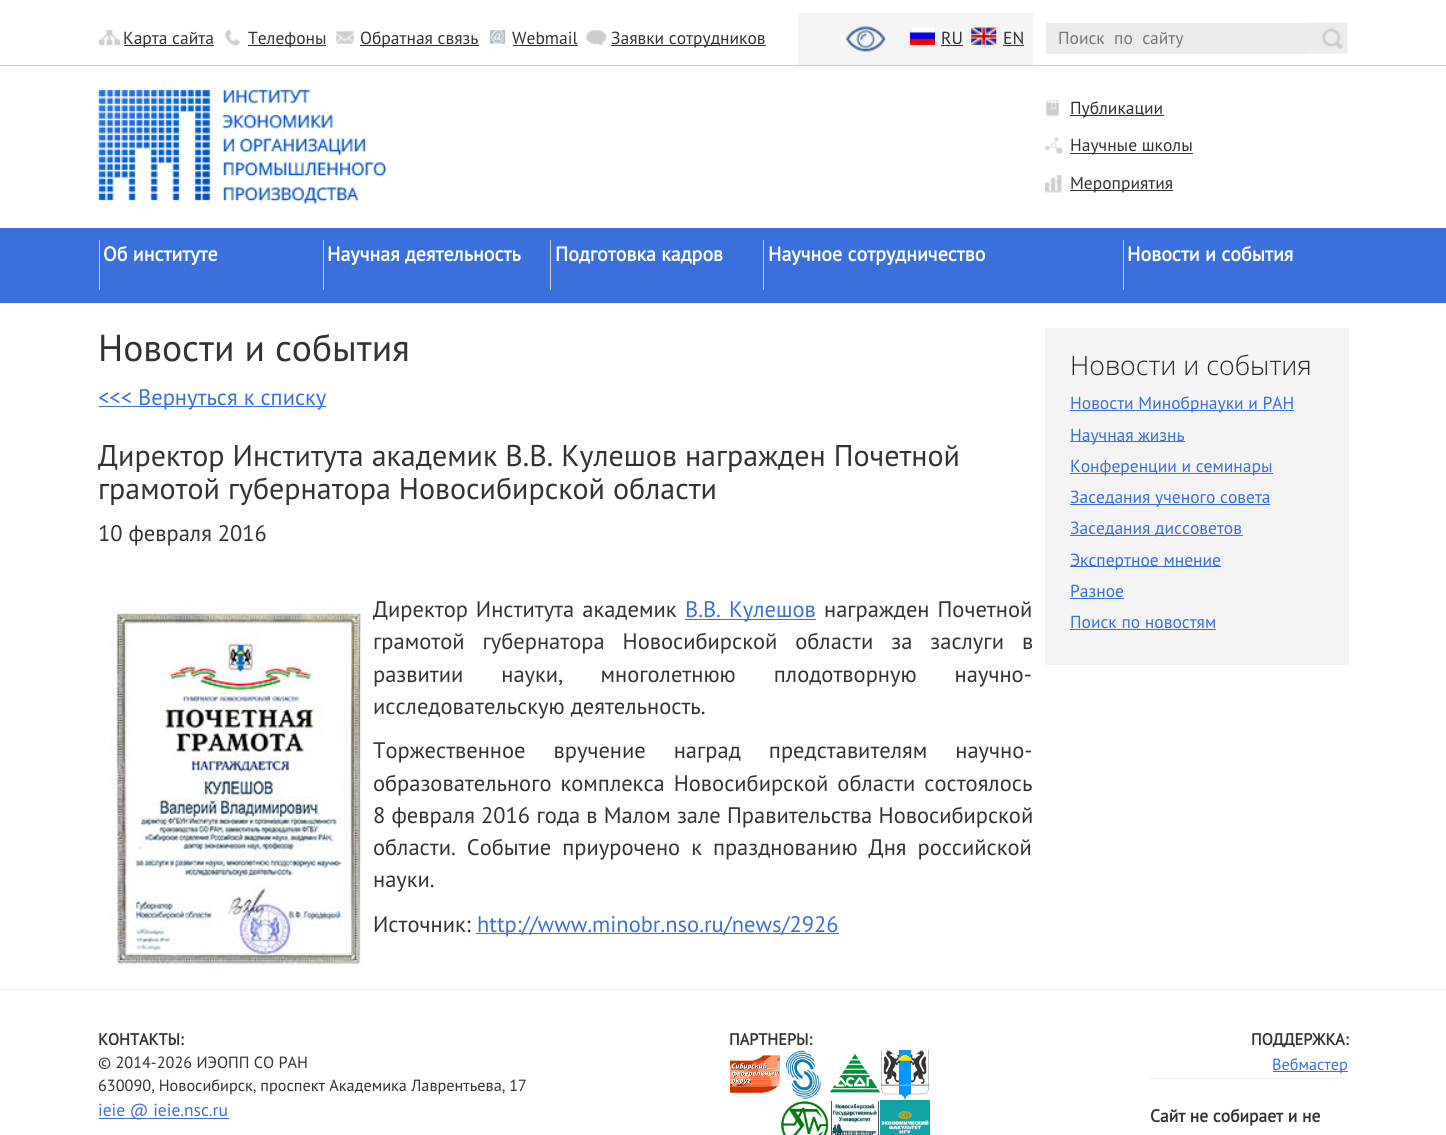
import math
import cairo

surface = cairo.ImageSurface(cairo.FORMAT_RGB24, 1446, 1135)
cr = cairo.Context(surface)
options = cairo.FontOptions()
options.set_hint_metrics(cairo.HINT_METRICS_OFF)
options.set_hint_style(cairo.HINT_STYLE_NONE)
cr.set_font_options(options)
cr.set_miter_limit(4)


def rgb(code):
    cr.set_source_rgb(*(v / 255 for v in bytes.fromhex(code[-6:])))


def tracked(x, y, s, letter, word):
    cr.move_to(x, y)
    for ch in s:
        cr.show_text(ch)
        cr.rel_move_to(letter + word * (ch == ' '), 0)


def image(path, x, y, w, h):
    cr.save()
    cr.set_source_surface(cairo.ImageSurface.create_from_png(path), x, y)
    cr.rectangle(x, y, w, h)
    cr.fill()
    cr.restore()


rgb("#ffffff")
cr.paint()
rgb("#cbcbcb")
cr.rectangle(0, 65, 1446, 1)
cr.fill()
image("img/1.png", 98, 30, 22, 16)
rgb("#333333")
cr.rectangle(124, 45, 90, 1)
cr.fill()
image("img/2.png", 225, 29, 15, 21)
cr.rectangle(248, 45, 78, 1)
cr.fill()
image("img/3.png", 336, 31, 18, 13)
cr.rectangle(360, 45, 119, 1)
cr.fill()
image("img/4.png", 489, 29, 17, 21)
cr.rectangle(513, 45, 65, 1)
cr.fill()
image("img/5.png", 586, 30, 21, 16)
cr.rectangle(611, 45, 155, 1)
cr.fill()
rgb("#f4f4f4")
cr.rectangle(798, 13, 235, 52)
cr.fill()
image("img/6.png", 846, 26, 40, 26)
image("img/7.png", 910, 27, 25, 18)
rgb("#333333")
cr.rectangle(941, 45, 22, 1)
cr.fill()
image("img/8.png", 971, 27, 26, 18)
cr.rectangle(1003, 45, 21, 1)
cr.fill()
rgb("#ebebeb")
cr.rectangle(1046, 23, 262, 31)
cr.fill()
image("img/9.png", 1307, 22, 41, 32)
image("img/10.png", 98, 89, 289, 115)
image("img/11.png", 1046, 100, 13, 17)
rgb("#333333")
cr.rectangle(1070, 115, 94, 1)
cr.fill()
image("img/12.png", 1045, 137, 18, 17)
cr.rectangle(1070, 153, 123, 1)
cr.fill()
image("img/13.png", 1045, 175, 17, 18)
for x, y, w, h, color in [
    (1070, 190, 103, 1, "#333333"),
    (0, 228, 1446, 75, "#3b6fdc"),
    (99, 240, 1, 50, "#cccccc"),
    (323, 240, 1, 50, "#cccccc"),
    (550, 240, 1, 50, "#cccccc"),
    (763, 240, 1, 50, "#cccccc"),
    (1123, 240, 1, 50, "#cccccc"),
    (99, 406, 227, 1, "#3b6fdc"),
]:
    rgb(color)
    cr.rectangle(x, y, w, h)
    cr.fill()
image("img/14.png", 111, 606, 251, 360)
for x, y, w, h, color in [
    (685, 619, 131, 1, "#3b6fdc"),
    (476, 933, 363, 1, "#3b6fdc"),
    (1045, 328, 304, 337, "#f4f4f4"),
    (1070, 410, 224, 1, "#3b6fdc"),
    (1070, 441, 115, 1, "#3b6fdc"),
    (1070, 473, 203, 1, "#3b6fdc"),
    (1070, 504, 200, 1, "#3b6fdc"),
    (1070, 535, 173, 1, "#3b6fdc"),
    (1070, 566, 151, 1, "#3b6fdc"),
    (1070, 598, 54, 1, "#3b6fdc"),
    (1070, 629, 146, 1, "#3b6fdc"),
    (0, 989, 1446, 1, "#eeeeee"),
    (99, 1118, 130, 1, "#3b6fdc"),
]:
    rgb(color)
    cr.rectangle(x, y, w, h)
    cr.fill()
image("img/15.png", 730, 1055, 50, 39)
image("img/16.png", 785, 1050, 37, 50)
image("img/17.png", 830, 1053, 50, 40)
image("img/18.png", 881, 1050, 48, 50)
image("img/19.png", 781, 1101, 48, 34)
image("img/20.png", 830, 1100, 49, 35)
image("img/21.png", 880, 1100, 50, 35)
cr.rectangle(1273, 1071, 75, 1)
cr.fill()
rgb("#eeeeee")
cr.rectangle(1150, 1078, 198, 1)
cr.fill()
cr.select_font_face("PT Sans")
cr.set_font_size(17.5)
rgb("#333333")
for x, y, s in [
    (123, 44, "Карта сайта"),
    (248, 44, "Телефоны"),
    (360, 44, "Обратная связь"),
    (512, 44, "Webmail"),
    (611, 44, "Заявки сотрудников"),
    (941, 44, "RU"),
    (1003, 44, "EN"),
]:
    cr.move_to(x, y)
    cr.show_text(s)
rgb("#757575")
cr.move_to(1058, 44)
cr.show_text("Поиск  по  сайту")
rgb("#333333")
for x, y, s in [
    (1070, 114, "Публикации"),
    (1070, 151, "Научные школы"),
    (1070, 189, "Мероприятия"),
]:
    cr.move_to(x, y)
    cr.show_text(s)
cr.select_font_face("PT Sans", cairo.FONT_SLANT_NORMAL, cairo.FONT_WEIGHT_BOLD)
cr.set_font_size(20)
rgb("#ffffff")
for x, y, s in [
    (103, 261, "Об институте"),
    (327, 261, "Научная деятельность"),
    (555, 261, "Подготовка кадров"),
    (768, 261, "Научное сотрудничество"),
    (1127, 261, "Новости и события"),
]:
    cr.move_to(x, y)
    cr.show_text(s)
cr.select_font_face("PT Sans")
cr.set_font_size(37.5)
rgb("#333333")
cr.move_to(98, 361)
cr.show_text("Новости и события")
cr.set_font_size(22.5)
rgb("#3b6fdc")
cr.move_to(98, 405)
cr.show_text("<<< Вернуться к списку")
cr.set_font_size(30)
rgb("#333333")
cr.move_to(98, 466)
cr.show_text("Директор Института академик В.В. Кулешов награжден Почетной")
cr.move_to(98, 499)
cr.show_text("грамотой губернатора Новосибирской области")
cr.set_font_size(22.5)
cr.move_to(98, 541)
cr.show_text("10 февраля 2016")
tracked(373, 617, "Директор Института академик", 0, 2)
rgb("#3b6fdc")
tracked(685, 617, "В.В. Кулешов", 0, 2)
rgb("#333333")
tracked(824, 617, "награжден Почетной", 0, 2)
tracked(373, 649, "грамотой губернатора Новосибирской области за заслуги в", 0, 12)
tracked(373, 682, "развитии науки, многолетнюю плодотворную научно-", 0, 32)
cr.move_to(373, 714)
cr.show_text("исследовательскую деятельность.")
tracked(373, 758, "Торжественное вручение наград представителям научно-", 0, 22)
tracked(373, 791, "образовательного комплекса Новосибирской области состоялось", 0, 3)
tracked(373, 823, "8 февраля 2016 года в Малом зале Правительства Новосибирской", 0, 0.25)
tracked(373, 855, "области. Событие приурочено к празднованию Дня российской", 0, 5)
cr.move_to(373, 887)
cr.show_text("науки.")
cr.move_to(373, 932)
cr.show_text("Источник:")
rgb("#3b6fdc")
cr.move_to(477, 932)
cr.show_text("http://www.minobr.nso.ru/news/2926")
cr.select_font_face("Open Sans Light")
cr.set_font_size(26.75)
rgb("#262626")
cr.move_to(1070, 375)
cr.show_text("Новости и события")
cr.select_font_face("PT Sans")
cr.set_font_size(17.5)
rgb("#3b6fdc")
for x, y, s in [
    (1070, 409, "Новости Минобрнауки и РАН"),
    (1070, 441, "Научная жизнь"),
    (1070, 472, "Конференции и семинары"),
    (1070, 503, "Заседания ученого совета"),
    (1070, 534, "Заседания диссоветов"),
    (1070, 566, "Экспертное мнение"),
    (1070, 597, "Разное"),
    (1070, 628, "Поиск по новостям"),
]:
    cr.move_to(x, y)
    cr.show_text(s)
cr.select_font_face("PT Sans", cairo.FONT_SLANT_NORMAL, cairo.FONT_WEIGHT_BOLD)
cr.set_font_size(16.25)
rgb("#333333")
cr.move_to(98, 1045)
cr.show_text("КОНТАКТЫ:")
cr.select_font_face("PT Sans")
cr.move_to(98, 1068)
cr.show_text("© 2014-2026 ИЭОПП СО РАН")
cr.move_to(98, 1091)
cr.show_text("630090, Новосибирск, проспект Академика Лаврентьева, 17")
cr.set_font_size(17.5)
rgb("#3b6fdc")
cr.move_to(98, 1116)
cr.show_text("ieie @ ieie.nsc.ru")
cr.select_font_face("PT Sans", cairo.FONT_SLANT_NORMAL, cairo.FONT_WEIGHT_BOLD)
cr.set_font_size(16.25)
rgb("#333333")
cr.move_to(729, 1045)
cr.show_text("ПАРТНЕРЫ:")
cr.move_to(1251, 1045)
cr.show_text("ПОДДЕРЖКА:")
cr.select_font_face("PT Sans")
rgb("#3b6fdc")
cr.move_to(1272, 1070)
cr.show_text("Вебмастер")
cr.select_font_face("PT Sans", cairo.FONT_SLANT_NORMAL, cairo.FONT_WEIGHT_BOLD)
cr.set_font_size(17.5)
rgb("#333333")
cr.move_to(1150, 1122)
cr.show_text("Сайт не собирает и не")
surface.write_to_png("page.png")
